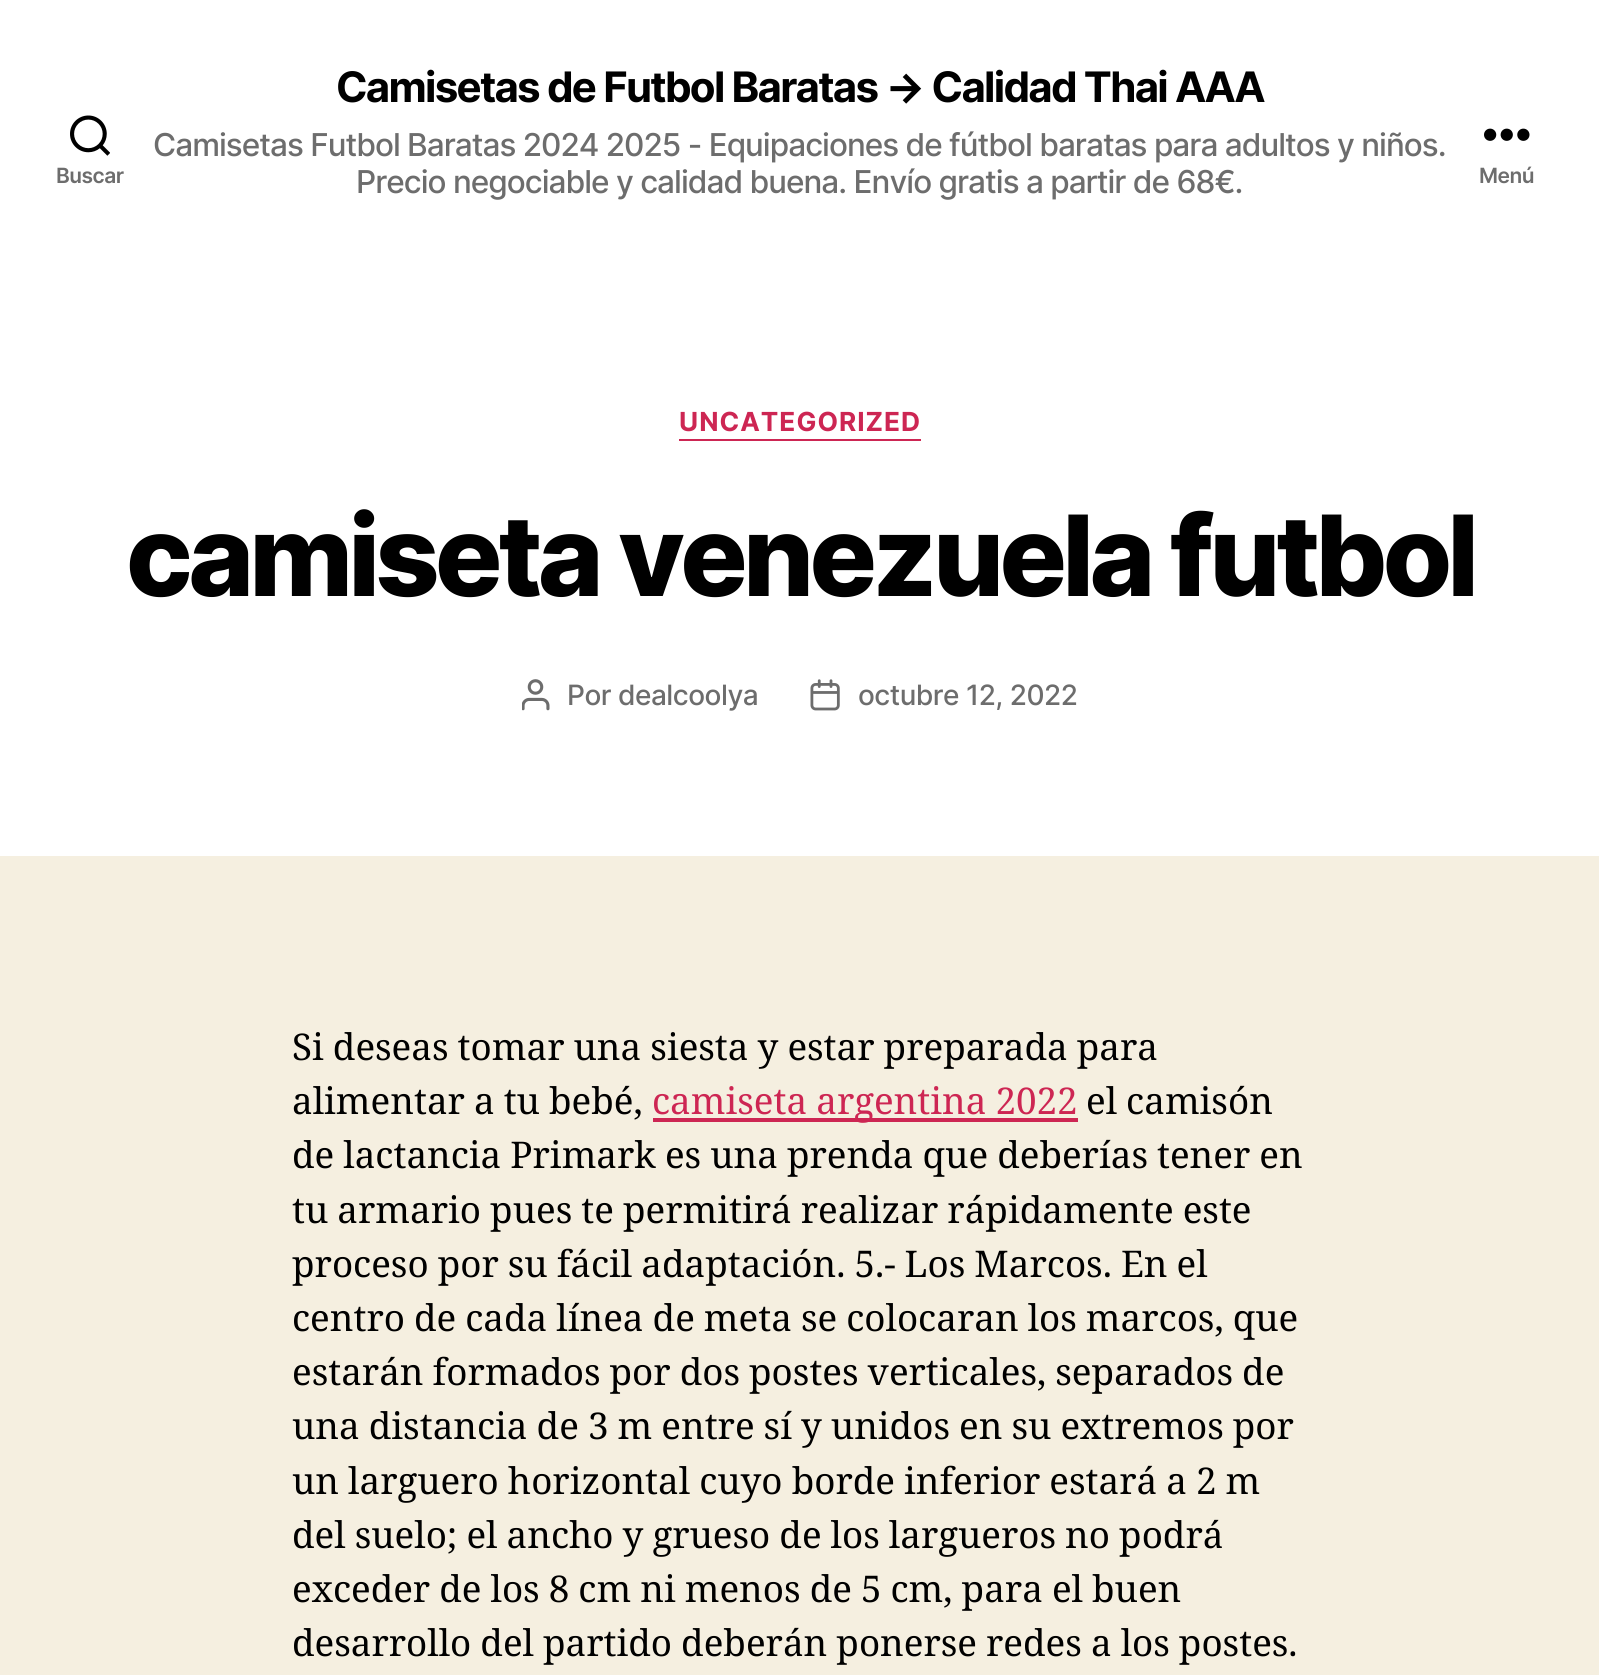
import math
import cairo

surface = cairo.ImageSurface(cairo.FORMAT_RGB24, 1599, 1675)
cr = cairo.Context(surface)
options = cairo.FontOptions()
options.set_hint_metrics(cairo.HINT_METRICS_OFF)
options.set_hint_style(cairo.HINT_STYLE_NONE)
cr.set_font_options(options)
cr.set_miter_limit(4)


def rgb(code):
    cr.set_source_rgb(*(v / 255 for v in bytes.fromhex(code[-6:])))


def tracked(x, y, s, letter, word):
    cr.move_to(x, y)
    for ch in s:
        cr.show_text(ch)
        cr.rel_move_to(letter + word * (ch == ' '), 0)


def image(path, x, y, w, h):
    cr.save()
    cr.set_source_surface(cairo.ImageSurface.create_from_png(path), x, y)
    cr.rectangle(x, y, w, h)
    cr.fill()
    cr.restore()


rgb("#f5efe0")
cr.paint()
rgb("#ffffff")
cr.rectangle(0, 0, 1599, 856)
cr.fill()
image("img/1.png", 70, 115, 40, 41)
image("img/2.png", 1484, 128, 46, 13)
rgb("#cd2653")
cr.rectangle(679, 439, 242, 2)
cr.fill()
image("img/3.png", 522, 679, 28, 32)
image("img/4.png", 810, 679, 30, 32)
cr.rectangle(653, 1118, 425, 4)
cr.fill()
cr.select_font_face("Inter SemiBold")
cr.set_font_size(21)
rgb("#6d6d6d")
tracked(56, 183, "Buscar", -0.5, 0)
cr.select_font_face("Inter", cairo.FONT_SLANT_NORMAL, cairo.FONT_WEIGHT_BOLD)
cr.set_font_size(42)
rgb("#000000")
tracked(336, 102, "Camisetas de Futbol Baratas → Calidad Thai AAA", -1.75, 0)
cr.select_font_face("Inter Medium")
cr.set_font_size(31.5)
rgb("#6d6d6d")
tracked(153, 156, "Camisetas Futbol Baratas 2024 2025 - Equipaciones de fútbol baratas para adultos y niños.", -0.98, 0)
tracked(356, 193, "Precio negociable y calidad buena. Envío gratis a partir de 68€.", -0.98, 0)
cr.select_font_face("Inter SemiBold")
cr.set_font_size(21)
tracked(1479, 183, "Menú", -0.5, 0)
cr.select_font_face("Inter", cairo.FONT_SLANT_NORMAL, cairo.FONT_WEIGHT_BOLD)
cr.set_font_size(26.25)
rgb("#cd2653")
tracked(679, 431, "UNCATEGORIZED", 1, 0)
cr.select_font_face("Inter ExtraBold")
cr.set_font_size(112)
rgb("#000000")
tracked(126, 596, "camiseta venezuela futbol", -4.65, 0)
cr.select_font_face("Inter Medium")
cr.set_font_size(28)
rgb("#6d6d6d")
tracked(567, 705, "Por dealcoolya", -0.5, 0)
tracked(858, 705, "octubre 12, 2022", -0.5, 0)
cr.select_font_face("Noto Serif")
cr.set_font_size(36.75)
rgb("#000000")
tracked(292, 1060, "Si deseas tomar una siesta y estar preparada para", 0, -0.5)
tracked(292, 1114, "alimentar a tu bebé,", 0, -0.5)
rgb("#cd2653")
tracked(652, 1114, "camiseta argentina 2022", 0, -0.5)
rgb("#000000")
for x, y, s in [
    (1086, 1114, "el camisón"),
    (292, 1168, "de lactancia Primark es una prenda que deberías tener en"),
    (292, 1223, "tu armario pues te permitirá realizar rápidamente este"),
    (292, 1277, "proceso por su fácil adaptación. 5.- Los Marcos. En el"),
    (292, 1331, "centro de cada línea de meta se colocaran los marcos, que"),
    (292, 1385, "estarán formados por dos postes verticales, separados de"),
    (292, 1439, "una distancia de 3 m entre sí y unidos en su extremos por"),
    (292, 1494, "un larguero horizontal cuyo borde inferior estará a 2 m"),
    (292, 1548, "del suelo; el ancho y grueso de los largueros no podrá"),
    (292, 1602, "exceder de los 8 cm ni menos de 5 cm, para el buen"),
    (292, 1656, "desarrollo del partido deberán ponerse redes a los postes."),
]:
    tracked(x, y, s, 0, -0.5)
surface.write_to_png("page.png")
